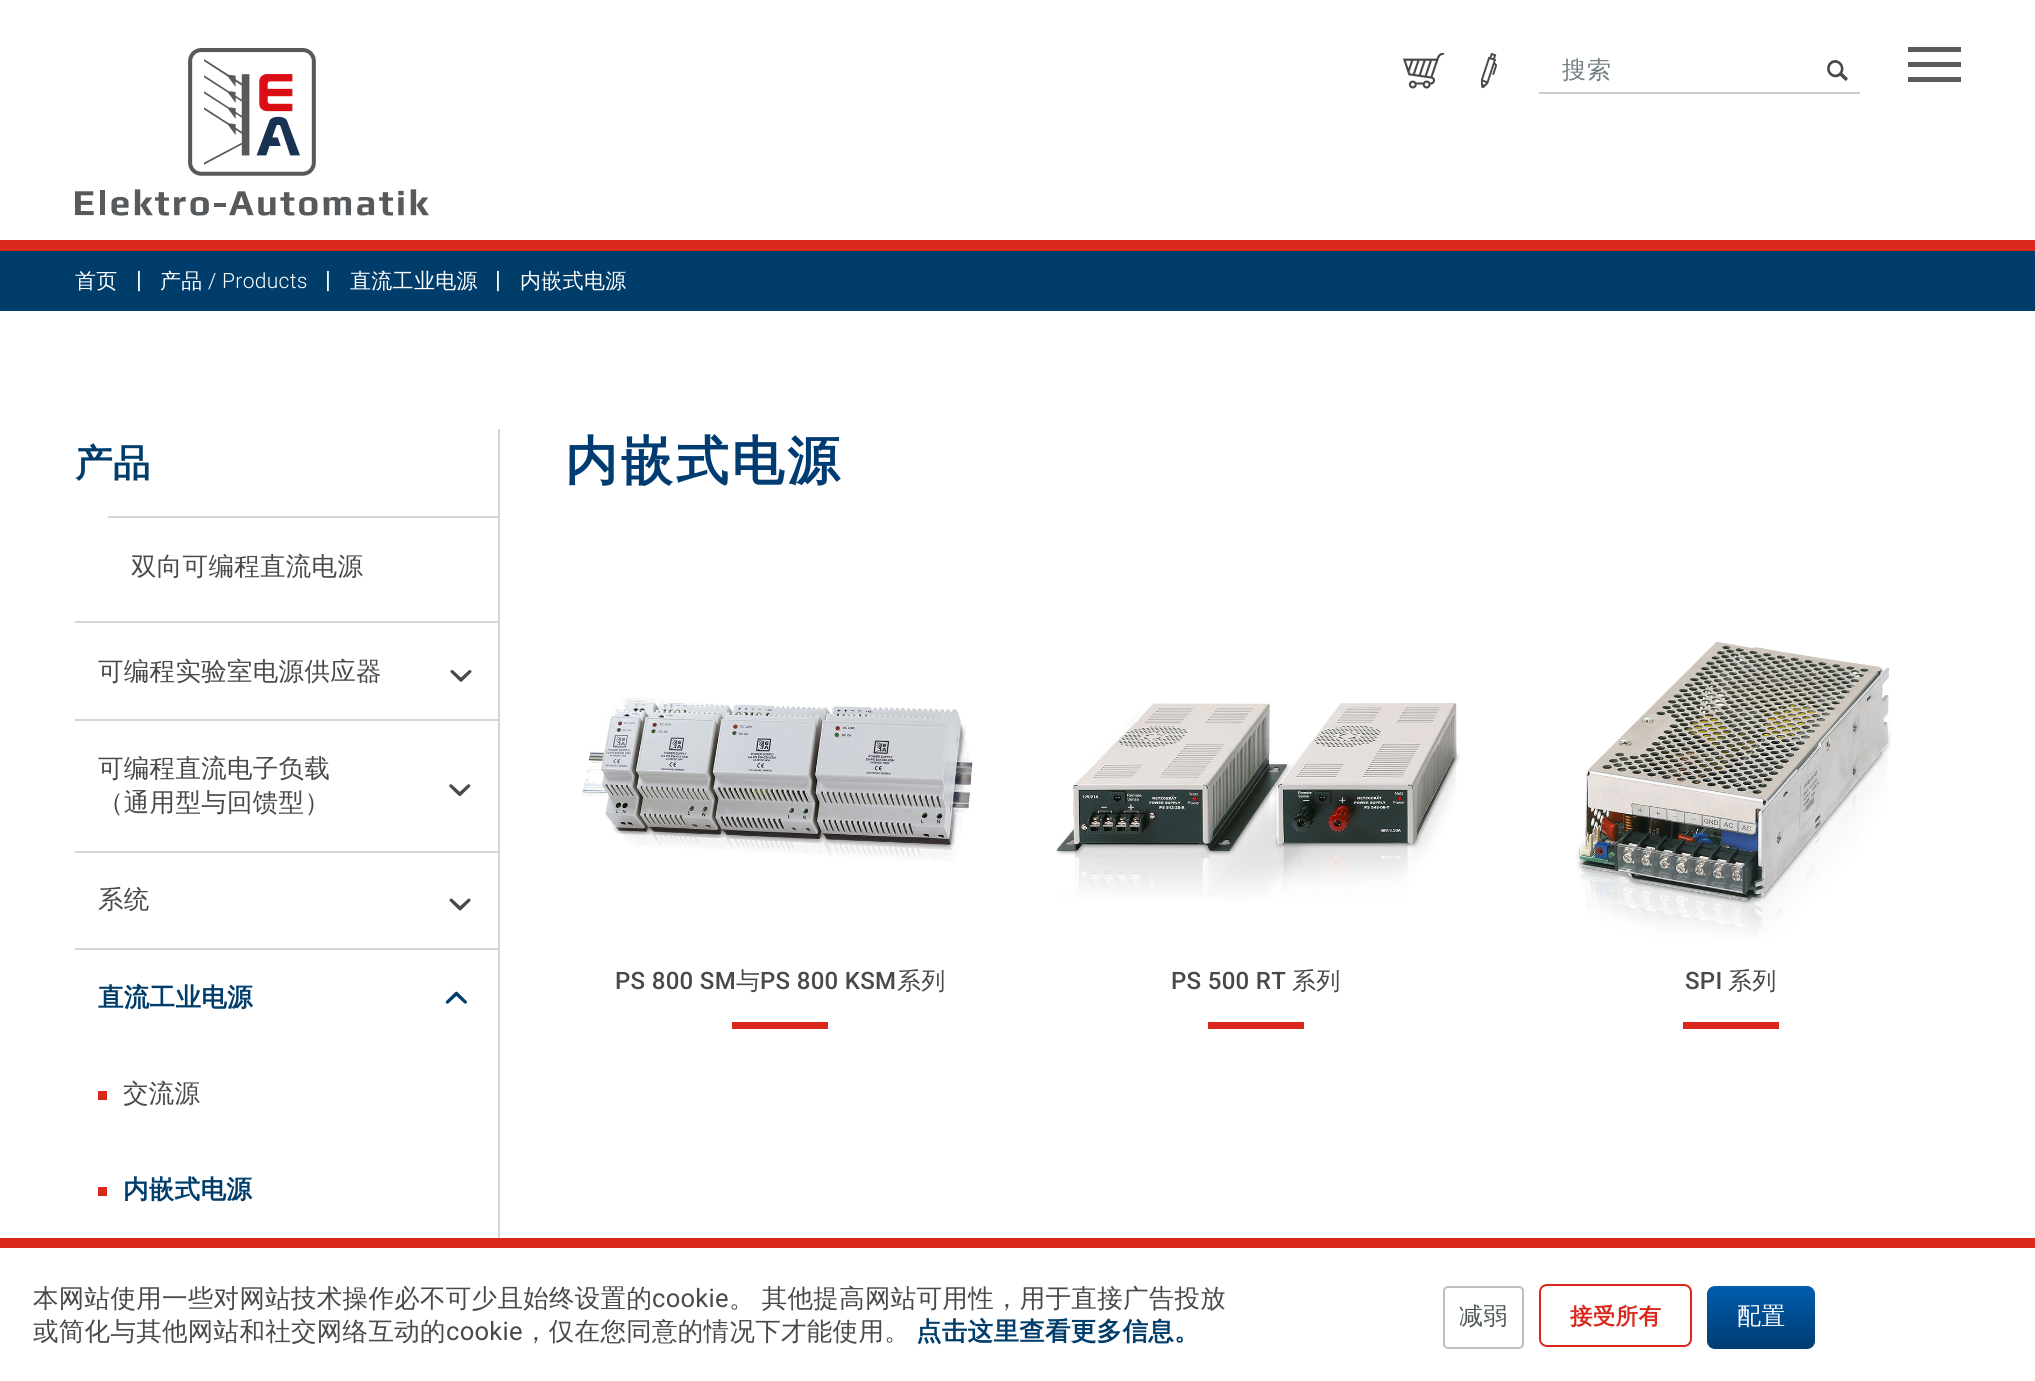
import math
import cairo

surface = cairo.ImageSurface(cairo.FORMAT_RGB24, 2035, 1381)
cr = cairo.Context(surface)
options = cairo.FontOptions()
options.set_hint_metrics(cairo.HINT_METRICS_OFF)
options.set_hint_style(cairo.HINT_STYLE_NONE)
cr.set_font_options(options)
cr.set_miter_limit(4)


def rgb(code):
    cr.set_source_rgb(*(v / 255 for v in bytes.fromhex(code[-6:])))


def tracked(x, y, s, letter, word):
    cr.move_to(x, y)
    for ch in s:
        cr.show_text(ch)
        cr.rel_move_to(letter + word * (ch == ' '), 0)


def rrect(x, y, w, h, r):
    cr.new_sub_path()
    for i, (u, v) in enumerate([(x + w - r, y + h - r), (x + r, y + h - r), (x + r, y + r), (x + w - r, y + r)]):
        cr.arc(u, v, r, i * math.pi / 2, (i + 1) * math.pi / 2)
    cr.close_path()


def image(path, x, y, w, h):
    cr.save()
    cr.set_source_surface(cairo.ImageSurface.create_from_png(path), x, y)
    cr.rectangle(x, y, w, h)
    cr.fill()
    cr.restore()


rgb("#ffffff")
cr.paint()
rgb("#da281c")
cr.rectangle(0, 240, 2035, 11)
cr.fill()
image("img/1.png", 75, 48, 354, 168)
image("img/2.png", 1403, 53, 42, 36)
image("img/3.png", 1481, 53, 16, 36)
rgb("#cdcdcd")
cr.rectangle(1539, 92, 321, 2)
cr.fill()
image("img/4.png", 1827, 60, 21, 21)
for x, y, w, h, color in [
    (1908, 62, 53, 5, "#5b5b5b"),
    (1908, 47, 53, 5, "#5b5b5b"),
    (1908, 77, 53, 5, "#5b5b5b"),
    (0, 251, 2035, 60, "#003d6a"),
    (108, 516, 392, 2, "#d4d6d6"),
    (75, 621, 425, 2, "#d4d6d6"),
    (75, 719, 425, 2, "#d4d6d6"),
    (75, 851, 425, 2, "#d4d6d6"),
    (75, 948, 425, 2, "#d4d6d6"),
    (498, 429, 2, 809, "#d4d6d6"),
]:
    rgb(color)
    cr.rectangle(x, y, w, h)
    cr.fill()
image("img/5.png", 450, 670, 22, 12)
image("img/6.png", 449, 784, 22, 13)
image("img/7.png", 449, 898, 22, 13)
image("img/8.png", 445, 991, 22, 13)
rgb("#da281c")
cr.rectangle(98, 1091, 9, 9)
cr.fill()
cr.rectangle(98, 1187, 9, 9)
cr.fill()
image("img/9.png", 582, 697, 391, 165)
cr.rectangle(732, 1022, 96, 7)
cr.fill()
image("img/10.png", 1056, 703, 404, 197)
cr.rectangle(1208, 1022, 96, 7)
cr.fill()
image("img/11.png", 1576, 642, 315, 297)
cr.rectangle(1683, 1022, 96, 7)
cr.fill()
cr.rectangle(0, 1238, 2035, 10)
cr.fill()
rrect(1444, 1287, 79, 61, 4)
rgb("#bfbfbf")
cr.stroke()
rrect(1540, 1285, 151, 61, 7)
rgb("#da281c")
cr.stroke()
gradient = cairo.LinearGradient(1761, 1286, 1761, 1349)
gradient.add_color_stop_rgba(0, 0, 0.361, 0.682, 1)
gradient.add_color_stop_rgba(1, 0, 0.235, 0.443, 1)
cr.set_source(gradient)
rrect(1707, 1286, 108, 63, 8)
cr.fill()
cr.select_font_face("WenQuanYi Zen Hei Medium")
cr.set_font_size(24)
rgb("#737e83")
tracked(1562, 78, "搜索", 1, 0)
cr.set_font_size(21)
rgb("#ffffff")
tracked(75, 288, "首页", 0.3, 0)
cr.select_font_face("Roboto")
cr.set_font_size(24)
tracked(136, 288, "|", 0.3, 0)
cr.select_font_face("WenQuanYi Zen Hei Medium")
cr.set_font_size(21)
tracked(160, 288, "产品", 0.3, 0)
cr.select_font_face("Roboto Light")
tracked(208, 288, "/ Products", 0.3, 0)
cr.select_font_face("Roboto")
cr.set_font_size(24)
tracked(325, 288, "|", 0.3, 0)
cr.select_font_face("WenQuanYi Zen Hei Medium")
cr.set_font_size(21)
tracked(350, 288, "直流工业电源", 0.3, 0)
cr.select_font_face("Roboto")
cr.set_font_size(24)
tracked(495, 288, "|", 0.3, 0)
cr.select_font_face("WenQuanYi Zen Hei Medium")
cr.set_font_size(21)
tracked(520, 288, "内嵌式电源", 0.3, 0)
cr.select_font_face("WenQuanYi Zen Hei", cairo.FONT_SLANT_NORMAL, cairo.FONT_WEIGHT_BOLD)
cr.set_font_size(37.5)
rgb("#003d6a")
tracked(75, 476, "产品", 0.3, 0)
cr.select_font_face("WenQuanYi Zen Hei Medium")
cr.set_font_size(25.5)
rgb("#47494a")
for x, y, s in [
    (131, 575, "双向可编程直流电源"),
    (98, 680, "可编程实验室电源供应器"),
    (98, 777, "可编程直流电子负载"),
    (98, 811, "（通用型与回馈型）"),
    (98, 908, "系统"),
]:
    tracked(x, y, s, 0.3, 0)
cr.select_font_face("WenQuanYi Zen Hei", cairo.FONT_SLANT_NORMAL, cairo.FONT_WEIGHT_BOLD)
rgb("#003d6a")
tracked(98, 1006, "直流工业电源", 0.3, 0)
cr.select_font_face("WenQuanYi Zen Hei Medium")
rgb("#47494a")
tracked(123, 1102, "交流源", 0.3, 0)
cr.select_font_face("WenQuanYi Zen Hei", cairo.FONT_SLANT_NORMAL, cairo.FONT_WEIGHT_BOLD)
rgb("#003d6a")
tracked(123, 1198, "内嵌式电源", 0.3, 0)
cr.set_font_size(52.5)
rgb("#003c71")
tracked(565, 479, "内嵌式电源", 3, 0)
cr.select_font_face("Roboto Medium")
cr.set_font_size(24)
rgb("#47494a")
tracked(615, 989, "PS 800 SM", 0.3, 0)
cr.select_font_face("WenQuanYi Zen Hei Medium")
tracked(736, 989, "与", 0.3, 0)
cr.select_font_face("Roboto Medium")
tracked(760, 989, "PS 800 KSM", 0.3, 0)
cr.select_font_face("WenQuanYi Zen Hei Medium")
tracked(897, 989, "系列", 0.3, 0)
cr.select_font_face("Roboto Medium")
tracked(1171, 989, "PS 500 RT", 0.3, 0)
cr.select_font_face("WenQuanYi Zen Hei Medium")
tracked(1292, 989, "系列", 0.3, 0)
cr.select_font_face("Roboto Medium")
tracked(1685, 989, "SPI", 0.3, 0)
cr.select_font_face("WenQuanYi Zen Hei Medium")
tracked(1728, 989, "系列", 0.3, 0)
cr.set_font_size(25.5)
tracked(33, 1307, "本网站使用一些对网站技术操作必不可少且始终设置的", 0.3, 0)
cr.select_font_face("Roboto")
tracked(652, 1307, "cookie", 0.3, 0)
cr.select_font_face("WenQuanYi Zen Hei Medium")
tracked(729, 1307, "。 其他提高网站可用性，用于直接广告投放", 0.3, -1)
tracked(33, 1340, "或简化与其他网站和社交网络互动的", 0.3, 0)
cr.select_font_face("Roboto")
tracked(446, 1340, "cookie", 0.3, 0)
cr.select_font_face("WenQuanYi Zen Hei Medium")
tracked(523, 1340, "，仅在您同意的情况下才能使用。", 0.3, 0)
cr.select_font_face("WenQuanYi Zen Hei", cairo.FONT_SLANT_NORMAL, cairo.FONT_WEIGHT_BOLD)
rgb("#003d6a")
tracked(916, 1340, "点击这里查看更多信息。", 0.3, 0)
cr.select_font_face("WenQuanYi Zen Hei Medium")
cr.set_font_size(24)
rgb("#4f575a")
tracked(1459, 1324, "减弱", 0.3, 0)
cr.select_font_face("WenQuanYi Zen Hei", cairo.FONT_SLANT_NORMAL, cairo.FONT_WEIGHT_BOLD)
cr.set_font_size(22.5)
rgb("#da281c")
tracked(1570, 1324, "接受所有", 0.3, 0)
cr.select_font_face("WenQuanYi Zen Hei Medium")
cr.set_font_size(24)
rgb("#ffffff")
tracked(1737, 1324, "配置", 0.3, 0)
surface.write_to_png("page.png")
